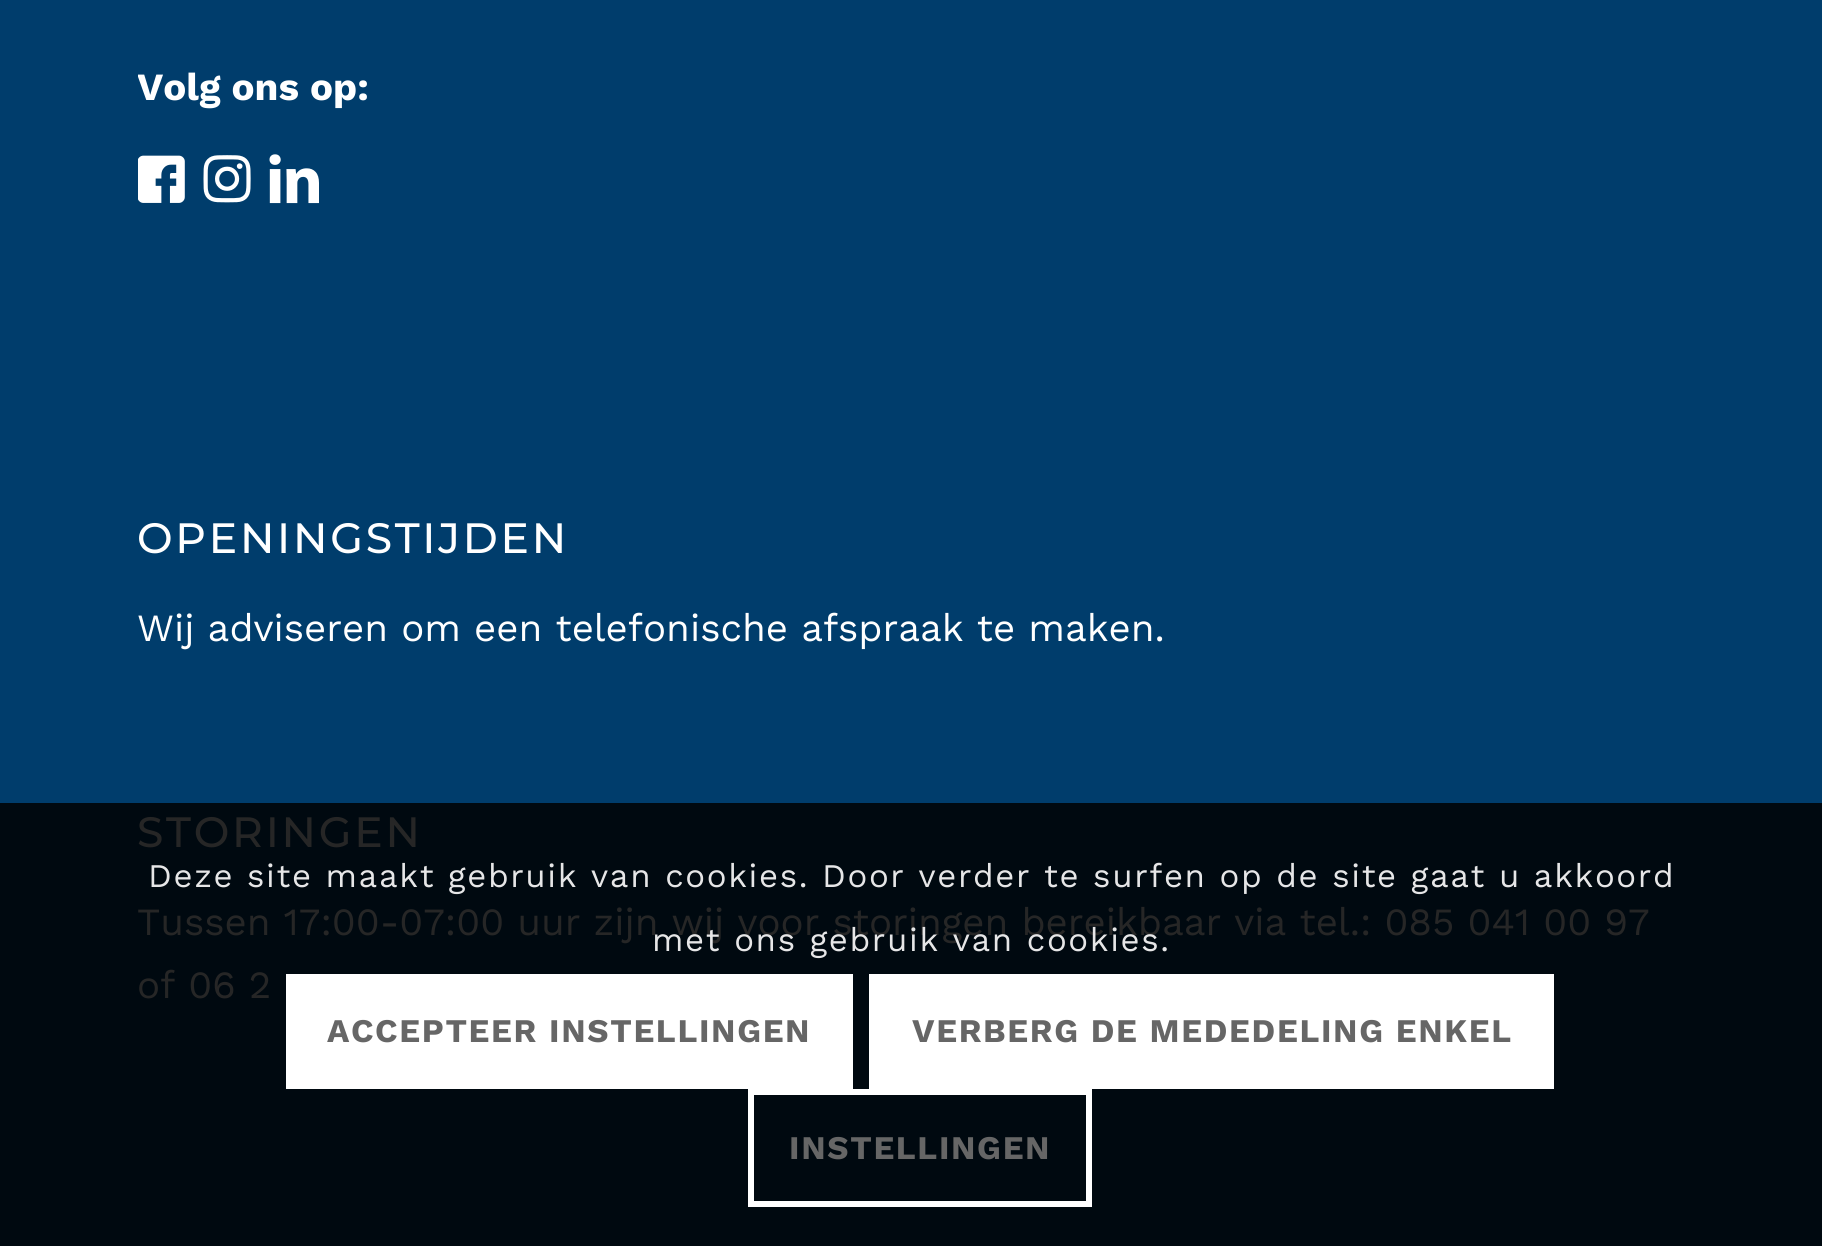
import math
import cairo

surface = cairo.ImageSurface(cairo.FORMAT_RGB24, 1822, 1246)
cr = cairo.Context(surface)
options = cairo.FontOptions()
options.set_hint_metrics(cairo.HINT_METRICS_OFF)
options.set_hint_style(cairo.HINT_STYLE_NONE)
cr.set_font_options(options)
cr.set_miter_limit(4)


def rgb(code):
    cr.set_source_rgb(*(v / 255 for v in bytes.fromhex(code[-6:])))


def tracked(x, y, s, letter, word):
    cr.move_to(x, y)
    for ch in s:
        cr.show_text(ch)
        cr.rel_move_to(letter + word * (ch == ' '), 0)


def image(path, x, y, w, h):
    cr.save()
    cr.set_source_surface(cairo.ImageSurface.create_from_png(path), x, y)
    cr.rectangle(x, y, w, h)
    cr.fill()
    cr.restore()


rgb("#003d6c")
cr.paint()
rgb("#000910")
cr.rectangle(0, 803, 1822, 443)
cr.fill()
image("img/1.png", 138, 155, 47, 48)
image("img/2.png", 203, 155, 48, 48)
image("img/3.png", 269, 154, 50, 50)
rgb("#ffffff")
cr.rectangle(286, 974, 567, 115)
cr.fill()
cr.rectangle(869, 974, 685, 115)
cr.fill()
cr.rectangle(751, 1092, 338, 112)
cr.set_line_width(6)
cr.stroke()
cr.save()
cr.rectangle(138, 0, 1548, 261)
cr.clip()
cr.select_font_face("Work Sans", cairo.FONT_SLANT_NORMAL, cairo.FONT_WEIGHT_BOLD)
cr.set_font_size(38.5)
cr.move_to(137, 100)
cr.show_text("Volg ons op:")
cr.restore()
cr.select_font_face("Montserrat Medium")
cr.set_font_size(42.4)
tracked(137, 553, "OPENINGSTIJDEN", 2.75, 0)
cr.select_font_face("Work Sans")
cr.set_font_size(38.5)
cr.move_to(137, 641)
cr.show_text("Wij adviseren om een telefonische afspraak te maken.")
cr.select_font_face("Montserrat Medium")
cr.set_font_size(42.4)
rgb("#262626")
tracked(137, 847, "STORINGEN", 2.75, 0)
cr.select_font_face("Work Sans")
cr.set_font_size(38.5)
cr.move_to(137, 935)
cr.show_text("Tussen 17:00-07:00 uur zijn wij voor storingen bereikbaar via tel.: 085 041 00 97")
cr.move_to(137, 998)
cr.show_text("of 06 2")
cr.set_font_size(33)
rgb("#e6e6e7")
tracked(148, 887, "Deze site maakt gebruik van cookies. Door verder te surfen op de site gaat u akkoord", 1.65, 0)
tracked(652, 951, "met ons gebruik van cookies.", 1.65, 0)
cr.select_font_face("Work Sans", cairo.FONT_SLANT_NORMAL, cairo.FONT_WEIGHT_BOLD)
rgb("#666666")
for x, y, s in [
    (327, 1042, "ACCEPTEER INSTELLINGEN"),
    (912, 1042, "VERBERG DE MEDEDELING ENKEL"),
    (789, 1159, "INSTELLINGEN"),
]:
    tracked(x, y, s, 1.65, 0)
surface.write_to_png("page.png")
